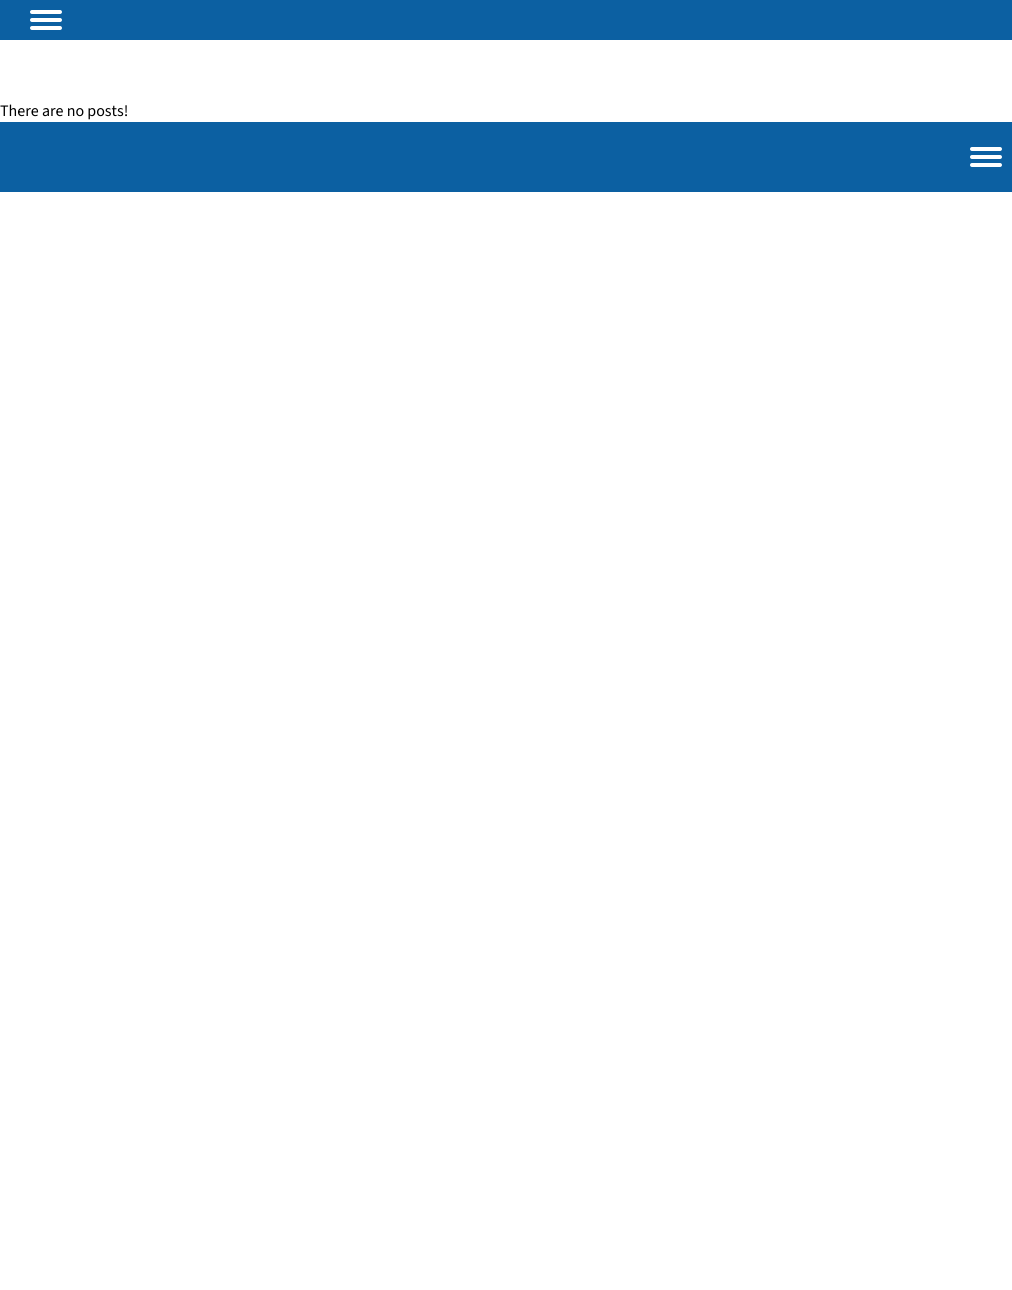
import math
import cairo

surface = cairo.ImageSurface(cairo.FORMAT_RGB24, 1012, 1290)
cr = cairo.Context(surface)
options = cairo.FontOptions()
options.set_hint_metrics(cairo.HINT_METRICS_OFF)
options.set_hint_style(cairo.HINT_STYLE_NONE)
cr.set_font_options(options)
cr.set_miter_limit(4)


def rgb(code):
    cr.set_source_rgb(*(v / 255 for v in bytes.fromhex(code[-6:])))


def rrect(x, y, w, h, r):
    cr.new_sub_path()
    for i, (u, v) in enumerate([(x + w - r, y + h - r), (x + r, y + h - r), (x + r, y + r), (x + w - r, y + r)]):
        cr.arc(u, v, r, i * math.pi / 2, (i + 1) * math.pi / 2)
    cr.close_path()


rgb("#ffffff")
cr.paint()
rgb("#0c60a2")
cr.rectangle(0, 0, 1012, 40)
cr.fill()
rgb("#ffffff")
rrect(30, 10, 32, 4, 2)
cr.fill()
rrect(30, 18, 32, 4, 2)
cr.fill()
rrect(30, 26, 32, 4, 2)
cr.fill()
rgb("#0c60a2")
cr.rectangle(0, 122, 1012, 70)
cr.fill()
rgb("#ffffff")
rrect(970, 147, 32, 4, 2)
cr.fill()
rrect(970, 155, 32, 4, 2)
cr.fill()
rrect(970, 163, 32, 4, 2)
cr.fill()
cr.select_font_face("Source Sans 3 ExtraLight")
cr.set_font_size(16)
rgb("#000000")
cr.move_to(0, 116)
cr.show_text("There are no posts!")
surface.write_to_png("page.png")
